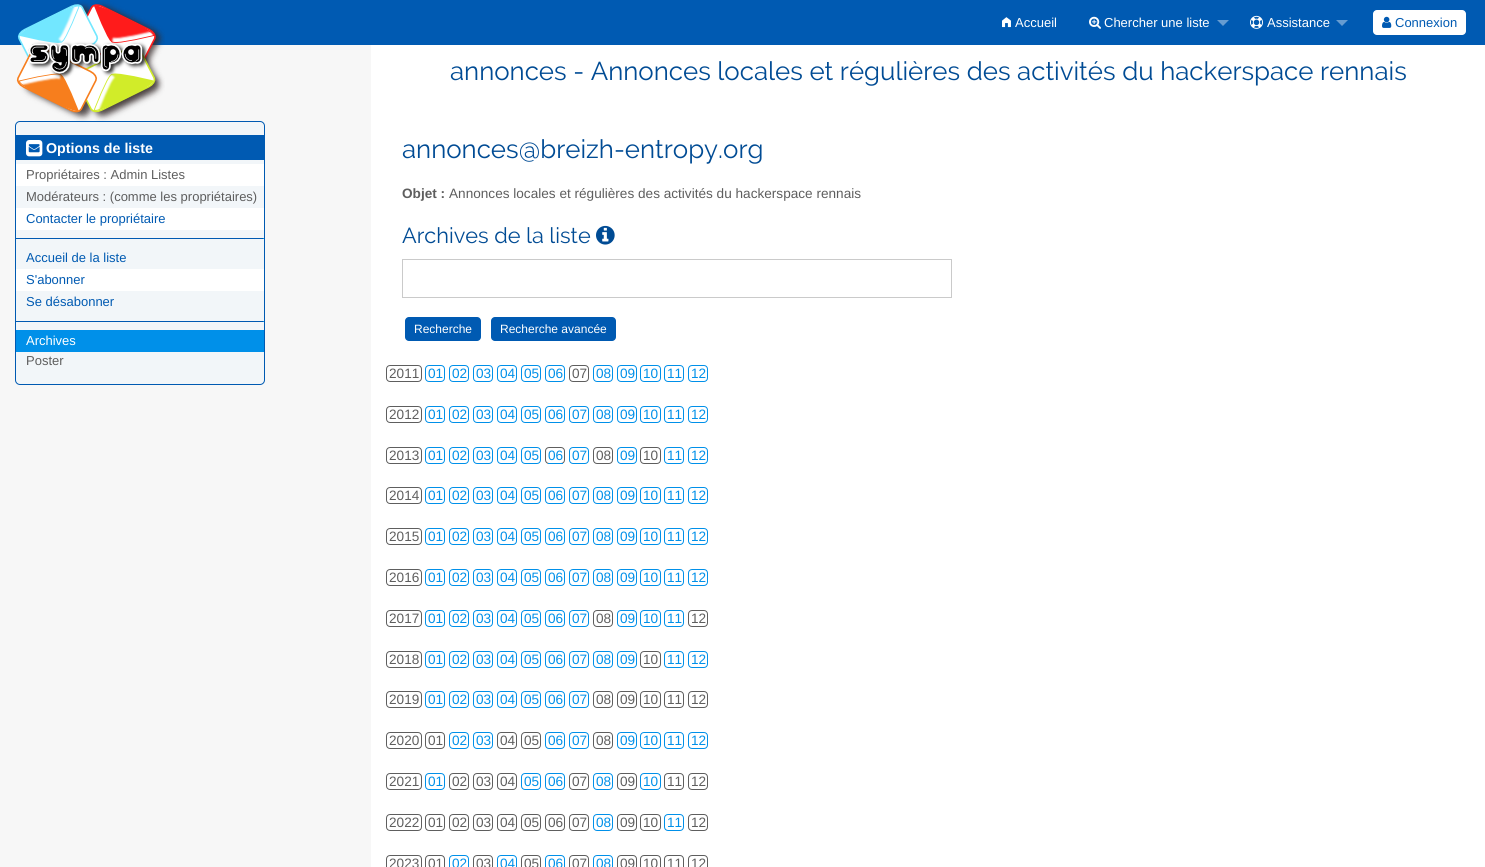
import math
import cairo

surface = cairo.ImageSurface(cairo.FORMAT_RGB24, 1485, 867)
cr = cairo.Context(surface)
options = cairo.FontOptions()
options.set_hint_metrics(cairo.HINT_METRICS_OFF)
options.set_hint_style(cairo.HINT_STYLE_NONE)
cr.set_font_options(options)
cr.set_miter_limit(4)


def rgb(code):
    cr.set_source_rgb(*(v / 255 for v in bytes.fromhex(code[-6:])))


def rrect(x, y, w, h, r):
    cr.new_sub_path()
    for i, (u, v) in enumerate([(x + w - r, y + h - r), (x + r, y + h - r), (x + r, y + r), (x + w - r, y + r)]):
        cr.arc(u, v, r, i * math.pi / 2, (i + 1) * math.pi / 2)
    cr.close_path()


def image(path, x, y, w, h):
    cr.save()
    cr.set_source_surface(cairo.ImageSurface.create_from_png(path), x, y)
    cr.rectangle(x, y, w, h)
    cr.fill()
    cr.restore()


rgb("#f7f7f7")
cr.paint()
rgb("#005ab2")
cr.rectangle(0, 0, 1485, 45)
cr.fill()
image("img/1.png", 16, 1, 149, 120)
image("img/2.png", 1002, 17, 9, 11)
image("img/3.png", 1089, 16, 12, 13)
rgb("#669cd1")
cr.new_path()
cr.move_to(1217, 20)
cr.line_to(1229, 20)
cr.line_to(1223, 26)
cr.close_path()
cr.fill()
image("img/4.png", 1250, 15, 13, 14)
cr.new_path()
cr.move_to(1336, 20)
cr.line_to(1348, 20)
cr.line_to(1342, 26)
cr.close_path()
cr.fill()
rgb("#ffffff")
rrect(1373, 10, 93, 25, 4)
cr.fill()
image("img/5.png", 1382, 16, 10, 12)
cr.rectangle(371, 45, 1114, 822)
cr.fill()
rgb("#f2f6f9")
rrect(15.5, 121.5, 249, 263, 4.5)
cr.fill_preserve()
rgb("#005ab2")
cr.set_line_width(1)
cr.stroke()
cr.rectangle(16, 135, 248, 25)
cr.fill()
image("img/6.png", 26, 140, 17, 17)
for x, y, w, h, color in [
    (16, 164, 248, 22, "#ffffff"),
    (16, 208, 248, 22, "#ffffff"),
    (16, 238, 248, 1, "#005ab2"),
    (263, 238, 1, 1, "#0090e9"),
    (16, 269, 248, 22, "#ffffff"),
    (16, 321, 248, 1, "#005ab2"),
    (263, 321, 1, 1, "#0090e9"),
    (16, 330, 248, 22, "#0090e9"),
]:
    rgb(color)
    cr.rectangle(x, y, w, h)
    cr.fill()
image("img/7.png", 596, 225, 19, 20)
cr.rectangle(402.5, 259.5, 549, 38)
rgb("#cacaca")
cr.stroke()
rgb("#005ab2")
rrect(405, 317, 76, 24, 4)
cr.fill()
rrect(491, 317, 125, 24, 4)
cr.fill()
rrect(386.5, 365.5, 35, 16, 3.5)
rgb("#5e5e5e")
cr.stroke()
rrect(425.5, 365.5, 19, 16, 3.5)
rgb("#0090e9")
cr.stroke()
rrect(449.5, 365.5, 19, 16, 3.5)
cr.stroke()
rrect(473.5, 365.5, 19, 16, 3.5)
cr.stroke()
rrect(497.5, 365.5, 19, 16, 3.5)
cr.stroke()
rrect(521.5, 365.5, 19, 16, 3.5)
cr.stroke()
rrect(545.5, 365.5, 19, 16, 3.5)
cr.stroke()
rrect(569.5, 365.5, 19, 16, 3.5)
rgb("#5e5e5e")
cr.stroke()
rrect(593.5, 365.5, 19, 16, 3.5)
rgb("#0090e9")
cr.stroke()
rrect(617.5, 365.5, 19, 16, 3.5)
cr.stroke()
rrect(640.5, 365.5, 20, 16, 3.5)
cr.stroke()
rrect(664.5, 365.5, 19, 16, 3.5)
cr.stroke()
rrect(688.5, 365.5, 19, 16, 3.5)
cr.stroke()
rrect(386.5, 406.5, 35, 16, 3.5)
rgb("#5e5e5e")
cr.stroke()
rrect(425.5, 406.5, 19, 16, 3.5)
rgb("#0090e9")
cr.stroke()
rrect(449.5, 406.5, 19, 16, 3.5)
cr.stroke()
rrect(473.5, 406.5, 19, 16, 3.5)
cr.stroke()
rrect(497.5, 406.5, 19, 16, 3.5)
cr.stroke()
rrect(521.5, 406.5, 19, 16, 3.5)
cr.stroke()
rrect(545.5, 406.5, 19, 16, 3.5)
cr.stroke()
rrect(569.5, 406.5, 19, 16, 3.5)
cr.stroke()
rrect(593.5, 406.5, 19, 16, 3.5)
cr.stroke()
rrect(617.5, 406.5, 19, 16, 3.5)
cr.stroke()
rrect(640.5, 406.5, 20, 16, 3.5)
cr.stroke()
rrect(664.5, 406.5, 19, 16, 3.5)
cr.stroke()
rrect(688.5, 406.5, 19, 16, 3.5)
cr.stroke()
rrect(386.5, 447.5, 35, 16, 3.5)
rgb("#5e5e5e")
cr.stroke()
rrect(425.5, 447.5, 19, 16, 3.5)
rgb("#0090e9")
cr.stroke()
rrect(449.5, 447.5, 19, 16, 3.5)
cr.stroke()
rrect(473.5, 447.5, 19, 16, 3.5)
cr.stroke()
rrect(497.5, 447.5, 19, 16, 3.5)
cr.stroke()
rrect(521.5, 447.5, 19, 16, 3.5)
cr.stroke()
rrect(545.5, 447.5, 19, 16, 3.5)
rgb("#5e5e5e")
cr.stroke()
rgb("#0090e9")
cr.rectangle(548, 463, 15, 1)
cr.fill()
rrect(569.5, 447.5, 19, 16, 3.5)
cr.stroke()
rrect(593.5, 447.5, 19, 16, 3.5)
rgb("#5e5e5e")
cr.stroke()
rrect(617.5, 447.5, 19, 16, 3.5)
rgb("#0090e9")
cr.stroke()
rrect(640.5, 447.5, 20, 16, 3.5)
rgb("#5e5e5e")
cr.stroke()
rrect(664.5, 447.5, 19, 16, 3.5)
rgb("#0090e9")
cr.stroke()
rrect(688.5, 447.5, 19, 16, 3.5)
cr.stroke()
rrect(386.5, 487.5, 35, 16, 3.5)
rgb("#5e5e5e")
cr.stroke()
rrect(425.5, 487.5, 19, 16, 3.5)
rgb("#0090e9")
cr.stroke()
rrect(449.5, 487.5, 19, 16, 3.5)
cr.stroke()
rrect(473.5, 487.5, 19, 16, 3.5)
cr.stroke()
rrect(497.5, 487.5, 19, 16, 3.5)
cr.stroke()
rrect(521.5, 487.5, 19, 16, 3.5)
cr.stroke()
rrect(545.5, 487.5, 19, 16, 3.5)
cr.stroke()
rrect(569.5, 487.5, 19, 16, 3.5)
cr.stroke()
rrect(593.5, 487.5, 19, 16, 3.5)
cr.stroke()
rrect(617.5, 487.5, 19, 16, 3.5)
cr.stroke()
rrect(640.5, 487.5, 20, 16, 3.5)
cr.stroke()
rrect(664.5, 487.5, 19, 16, 3.5)
cr.stroke()
rrect(688.5, 487.5, 19, 16, 3.5)
cr.stroke()
rrect(386.5, 528.5, 35, 16, 3.5)
rgb("#5e5e5e")
cr.stroke()
rrect(425.5, 528.5, 19, 16, 3.5)
rgb("#0090e9")
cr.stroke()
rrect(449.5, 528.5, 19, 16, 3.5)
cr.stroke()
rrect(473.5, 528.5, 19, 16, 3.5)
cr.stroke()
rrect(497.5, 528.5, 19, 16, 3.5)
cr.stroke()
rrect(521.5, 528.5, 19, 16, 3.5)
cr.stroke()
rrect(545.5, 528.5, 19, 16, 3.5)
cr.stroke()
rrect(569.5, 528.5, 19, 16, 3.5)
cr.stroke()
rrect(593.5, 528.5, 19, 16, 3.5)
cr.stroke()
rrect(617.5, 528.5, 19, 16, 3.5)
cr.stroke()
rrect(640.5, 528.5, 20, 16, 3.5)
cr.stroke()
rrect(664.5, 528.5, 19, 16, 3.5)
cr.stroke()
rrect(688.5, 528.5, 19, 16, 3.5)
cr.stroke()
rrect(386.5, 569.5, 35, 16, 3.5)
rgb("#5e5e5e")
cr.stroke()
rrect(425.5, 569.5, 19, 16, 3.5)
rgb("#0090e9")
cr.stroke()
rrect(449.5, 569.5, 19, 16, 3.5)
cr.stroke()
rrect(473.5, 569.5, 19, 16, 3.5)
cr.stroke()
rrect(497.5, 569.5, 19, 16, 3.5)
cr.stroke()
rrect(521.5, 569.5, 19, 16, 3.5)
cr.stroke()
rrect(545.5, 569.5, 19, 16, 3.5)
cr.stroke()
rrect(569.5, 569.5, 19, 16, 3.5)
cr.stroke()
rrect(593.5, 569.5, 19, 16, 3.5)
cr.stroke()
rrect(617.5, 569.5, 19, 16, 3.5)
cr.stroke()
rrect(640.5, 569.5, 20, 16, 3.5)
cr.stroke()
rrect(664.5, 569.5, 19, 16, 3.5)
cr.stroke()
rrect(688.5, 569.5, 19, 16, 3.5)
cr.stroke()
rrect(386.5, 610.5, 35, 16, 3.5)
rgb("#5e5e5e")
cr.stroke()
rrect(425.5, 610.5, 19, 16, 3.5)
rgb("#0090e9")
cr.stroke()
rrect(449.5, 610.5, 19, 16, 3.5)
cr.stroke()
rrect(473.5, 610.5, 19, 16, 3.5)
cr.stroke()
rrect(497.5, 610.5, 19, 16, 3.5)
cr.stroke()
rrect(521.5, 610.5, 19, 16, 3.5)
cr.stroke()
rrect(545.5, 610.5, 19, 16, 3.5)
cr.stroke()
rrect(569.5, 610.5, 19, 16, 3.5)
cr.stroke()
rrect(593.5, 610.5, 19, 16, 3.5)
rgb("#5e5e5e")
cr.stroke()
rrect(617.5, 610.5, 19, 16, 3.5)
rgb("#0090e9")
cr.stroke()
rrect(640.5, 610.5, 20, 16, 3.5)
cr.stroke()
rrect(664.5, 610.5, 19, 16, 3.5)
cr.stroke()
rrect(688.5, 610.5, 19, 16, 3.5)
rgb("#5e5e5e")
cr.stroke()
rrect(386.5, 651.5, 35, 16, 3.5)
cr.stroke()
rrect(425.5, 651.5, 19, 16, 3.5)
rgb("#0090e9")
cr.stroke()
rrect(449.5, 651.5, 19, 16, 3.5)
cr.stroke()
rrect(473.5, 651.5, 19, 16, 3.5)
cr.stroke()
rrect(497.5, 651.5, 19, 16, 3.5)
cr.stroke()
rrect(521.5, 651.5, 19, 16, 3.5)
cr.stroke()
rrect(545.5, 651.5, 19, 16, 3.5)
cr.stroke()
rrect(569.5, 651.5, 19, 16, 3.5)
cr.stroke()
rrect(593.5, 651.5, 19, 16, 3.5)
cr.stroke()
rrect(617.5, 651.5, 19, 16, 3.5)
cr.stroke()
rrect(640.5, 651.5, 20, 16, 3.5)
rgb("#5e5e5e")
cr.stroke()
rrect(664.5, 651.5, 19, 16, 3.5)
rgb("#0090e9")
cr.stroke()
rrect(688.5, 651.5, 19, 16, 3.5)
cr.stroke()
rrect(386.5, 691.5, 35, 16, 3.5)
rgb("#5e5e5e")
cr.stroke()
rrect(425.5, 691.5, 19, 16, 3.5)
rgb("#0090e9")
cr.stroke()
rrect(449.5, 691.5, 19, 16, 3.5)
cr.stroke()
rrect(473.5, 691.5, 19, 16, 3.5)
cr.stroke()
rrect(497.5, 691.5, 19, 16, 3.5)
cr.stroke()
rrect(521.5, 691.5, 19, 16, 3.5)
cr.stroke()
rrect(545.5, 691.5, 19, 16, 3.5)
cr.stroke()
rrect(569.5, 691.5, 19, 16, 3.5)
cr.stroke()
rrect(593.5, 691.5, 19, 16, 3.5)
rgb("#5e5e5e")
cr.stroke()
rrect(617.5, 691.5, 19, 16, 3.5)
cr.stroke()
rrect(640.5, 691.5, 20, 16, 3.5)
cr.stroke()
rrect(664.5, 691.5, 19, 16, 3.5)
cr.stroke()
rrect(688.5, 691.5, 19, 16, 3.5)
cr.stroke()
rrect(386.5, 732.5, 35, 16, 3.5)
cr.stroke()
rrect(425.5, 732.5, 19, 16, 3.5)
cr.stroke()
rrect(449.5, 732.5, 19, 16, 3.5)
rgb("#0090e9")
cr.stroke()
rrect(473.5, 732.5, 19, 16, 3.5)
cr.stroke()
rrect(497.5, 732.5, 19, 16, 3.5)
rgb("#5e5e5e")
cr.stroke()
rrect(521.5, 732.5, 19, 16, 3.5)
cr.stroke()
rrect(545.5, 732.5, 19, 16, 3.5)
rgb("#0090e9")
cr.stroke()
rrect(569.5, 732.5, 19, 16, 3.5)
cr.stroke()
rrect(593.5, 732.5, 19, 16, 3.5)
rgb("#5e5e5e")
cr.stroke()
rrect(617.5, 732.5, 19, 16, 3.5)
rgb("#0090e9")
cr.stroke()
rrect(640.5, 732.5, 20, 16, 3.5)
cr.stroke()
rrect(664.5, 732.5, 19, 16, 3.5)
cr.stroke()
rrect(688.5, 732.5, 19, 16, 3.5)
cr.stroke()
rrect(386.5, 773.5, 35, 16, 3.5)
rgb("#5e5e5e")
cr.stroke()
rrect(425.5, 773.5, 19, 16, 3.5)
rgb("#0090e9")
cr.stroke()
rrect(449.5, 773.5, 19, 16, 3.5)
rgb("#5e5e5e")
cr.stroke()
rrect(473.5, 773.5, 19, 16, 3.5)
cr.stroke()
rrect(497.5, 773.5, 19, 16, 3.5)
cr.stroke()
rrect(521.5, 773.5, 19, 16, 3.5)
rgb("#0090e9")
cr.stroke()
rrect(545.5, 773.5, 19, 16, 3.5)
cr.stroke()
rrect(569.5, 773.5, 19, 16, 3.5)
rgb("#5e5e5e")
cr.stroke()
rrect(593.5, 773.5, 19, 16, 3.5)
rgb("#0090e9")
cr.stroke()
rrect(617.5, 773.5, 19, 16, 3.5)
rgb("#5e5e5e")
cr.stroke()
rrect(640.5, 773.5, 20, 16, 3.5)
rgb("#0090e9")
cr.stroke()
rrect(664.5, 773.5, 19, 16, 3.5)
rgb("#5e5e5e")
cr.stroke()
rrect(688.5, 773.5, 19, 16, 3.5)
cr.stroke()
rrect(386.5, 814.5, 35, 16, 3.5)
cr.stroke()
rrect(425.5, 814.5, 19, 16, 3.5)
cr.stroke()
rrect(449.5, 814.5, 19, 16, 3.5)
cr.stroke()
rrect(473.5, 814.5, 19, 16, 3.5)
cr.stroke()
rrect(497.5, 814.5, 19, 16, 3.5)
cr.stroke()
rrect(521.5, 814.5, 19, 16, 3.5)
cr.stroke()
rrect(545.5, 814.5, 19, 16, 3.5)
cr.stroke()
rrect(569.5, 814.5, 19, 16, 3.5)
cr.stroke()
rrect(593.5, 814.5, 19, 16, 3.5)
rgb("#0090e9")
cr.stroke()
rrect(617.5, 814.5, 19, 16, 3.5)
rgb("#5e5e5e")
cr.stroke()
rrect(640.5, 814.5, 20, 16, 3.5)
cr.stroke()
rrect(664.5, 814.5, 19, 16, 3.5)
rgb("#0090e9")
cr.stroke()
rrect(688.5, 814.5, 19, 16, 3.5)
rgb("#5e5e5e")
cr.stroke()
rrect(386.5, 855.5, 35, 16, 3.5)
cr.stroke()
rrect(425.5, 855.5, 19, 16, 3.5)
cr.stroke()
rrect(449.5, 855.5, 19, 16, 3.5)
rgb("#0090e9")
cr.stroke()
rrect(473.5, 855.5, 19, 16, 3.5)
rgb("#5e5e5e")
cr.stroke()
rrect(497.5, 855.5, 19, 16, 3.5)
rgb("#0090e9")
cr.stroke()
rrect(521.5, 855.5, 19, 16, 3.5)
rgb("#5e5e5e")
cr.stroke()
rrect(545.5, 855.5, 19, 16, 3.5)
rgb("#0090e9")
cr.stroke()
rrect(569.5, 855.5, 19, 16, 3.5)
rgb("#5e5e5e")
cr.stroke()
rrect(593.5, 855.5, 19, 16, 3.5)
rgb("#0090e9")
cr.stroke()
rrect(617.5, 855.5, 19, 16, 3.5)
rgb("#5e5e5e")
cr.stroke()
rrect(640.5, 855.5, 20, 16, 3.5)
cr.stroke()
rrect(664.5, 855.5, 19, 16, 3.5)
cr.stroke()
rrect(688.5, 855.5, 19, 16, 3.5)
cr.stroke()
cr.select_font_face("Liberation Sans")
cr.set_font_size(13)
rgb("#ffffff")
for x, y, s in [
    (1015, 27, "Accueil"),
    (1104, 27, "Chercher une liste"),
    (1267, 27, "Assistance"),
]:
    cr.move_to(x, y)
    cr.show_text(s)
rgb("#005ab2")
cr.move_to(1395, 27)
cr.show_text("Connexion")
cr.select_font_face("Raleway")
cr.set_font_size(25.85)
rgb("#004b94")
cr.move_to(450, 80)
cr.show_text("annonces - Annonces locales et régulières des activités du hackerspace rennais")
cr.select_font_face("Liberation Sans", cairo.FONT_SLANT_NORMAL, cairo.FONT_WEIGHT_BOLD)
cr.set_font_size(14.25)
rgb("#ffffff")
cr.move_to(46, 153)
cr.show_text("Options de liste")
cr.select_font_face("Liberation Sans")
cr.set_font_size(13)
rgb("#5e5e5e")
cr.move_to(26, 179)
cr.show_text("Propriétaires : Admin Listes")
cr.move_to(26, 201)
cr.show_text("Modérateurs : (comme les propriétaires)")
rgb("#005ab2")
for x, y, s in [
    (26, 223, "Contacter le propriétaire"),
    (26, 262, "Accueil de la liste"),
    (26, 284, "S'abonner"),
    (26, 306, "Se désabonner"),
]:
    cr.move_to(x, y)
    cr.show_text(s)
rgb("#ffffff")
cr.move_to(26, 345)
cr.show_text("Archives")
rgb("#5e5e5e")
cr.move_to(26, 365)
cr.show_text("Poster")
cr.select_font_face("Raleway")
cr.set_font_size(25.85)
rgb("#004b94")
cr.move_to(402, 158)
cr.show_text("annonces@breizh-entropy.org")
cr.select_font_face("Liberation Sans", cairo.FONT_SLANT_NORMAL, cairo.FONT_WEIGHT_BOLD)
cr.set_font_size(13.6)
rgb("#5e5e5e")
cr.move_to(402, 198)
cr.show_text("Objet :")
cr.select_font_face("Liberation Sans")
cr.move_to(449, 198)
cr.show_text("Annonces locales et régulières des activités du hackerspace rennais")
cr.select_font_face("Raleway")
cr.set_font_size(21.75)
rgb("#004b94")
cr.move_to(402, 243)
cr.show_text("Archives de la liste")
cr.select_font_face("Liberation Sans")
cr.set_font_size(12)
rgb("#ffffff")
cr.move_to(414, 333)
cr.show_text("Recherche")
cr.move_to(500, 333)
cr.show_text("Recherche avancée")
cr.set_font_size(13.6)
rgb("#5e5e5e")
cr.move_to(389, 378)
cr.show_text("2011")
rgb("#0090e9")
for x, y, s in [
    (428, 378, "01"),
    (452, 378, "02"),
    (476, 378, "03"),
    (500, 378, "04"),
    (524, 378, "05"),
    (548, 378, "06"),
]:
    cr.move_to(x, y)
    cr.show_text(s)
rgb("#5e5e5e")
cr.move_to(572, 378)
cr.show_text("07")
rgb("#0090e9")
for x, y, s in [
    (596, 378, "08"),
    (620, 378, "09"),
    (643, 378, "10"),
    (667, 378, "11"),
    (691, 378, "12"),
]:
    cr.move_to(x, y)
    cr.show_text(s)
rgb("#5e5e5e")
cr.move_to(389, 419)
cr.show_text("2012")
rgb("#0090e9")
for x, y, s in [
    (428, 419, "01"),
    (452, 419, "02"),
    (476, 419, "03"),
    (500, 419, "04"),
    (524, 419, "05"),
    (548, 419, "06"),
    (572, 419, "07"),
    (596, 419, "08"),
    (620, 419, "09"),
    (643, 419, "10"),
    (667, 419, "11"),
    (691, 419, "12"),
]:
    cr.move_to(x, y)
    cr.show_text(s)
rgb("#5e5e5e")
cr.move_to(389, 460)
cr.show_text("2013")
rgb("#0090e9")
for x, y, s in [
    (428, 460, "01"),
    (452, 460, "02"),
    (476, 460, "03"),
    (500, 460, "04"),
    (524, 460, "05"),
    (548, 460, "06"),
    (572, 460, "07"),
]:
    cr.move_to(x, y)
    cr.show_text(s)
rgb("#5e5e5e")
cr.move_to(596, 460)
cr.show_text("08")
rgb("#0090e9")
cr.move_to(620, 460)
cr.show_text("09")
rgb("#5e5e5e")
cr.move_to(643, 460)
cr.show_text("10")
rgb("#0090e9")
cr.move_to(667, 460)
cr.show_text("11")
cr.move_to(691, 460)
cr.show_text("12")
rgb("#5e5e5e")
cr.move_to(389, 500)
cr.show_text("2014")
rgb("#0090e9")
for x, y, s in [
    (428, 500, "01"),
    (452, 500, "02"),
    (476, 500, "03"),
    (500, 500, "04"),
    (524, 500, "05"),
    (548, 500, "06"),
    (572, 500, "07"),
    (596, 500, "08"),
    (620, 500, "09"),
    (643, 500, "10"),
    (667, 500, "11"),
    (691, 500, "12"),
]:
    cr.move_to(x, y)
    cr.show_text(s)
rgb("#5e5e5e")
cr.move_to(389, 541)
cr.show_text("2015")
rgb("#0090e9")
for x, y, s in [
    (428, 541, "01"),
    (452, 541, "02"),
    (476, 541, "03"),
    (500, 541, "04"),
    (524, 541, "05"),
    (548, 541, "06"),
    (572, 541, "07"),
    (596, 541, "08"),
    (620, 541, "09"),
    (643, 541, "10"),
    (667, 541, "11"),
    (691, 541, "12"),
]:
    cr.move_to(x, y)
    cr.show_text(s)
rgb("#5e5e5e")
cr.move_to(389, 582)
cr.show_text("2016")
rgb("#0090e9")
for x, y, s in [
    (428, 582, "01"),
    (452, 582, "02"),
    (476, 582, "03"),
    (500, 582, "04"),
    (524, 582, "05"),
    (548, 582, "06"),
    (572, 582, "07"),
    (596, 582, "08"),
    (620, 582, "09"),
    (643, 582, "10"),
    (667, 582, "11"),
    (691, 582, "12"),
]:
    cr.move_to(x, y)
    cr.show_text(s)
rgb("#5e5e5e")
cr.move_to(389, 623)
cr.show_text("2017")
rgb("#0090e9")
for x, y, s in [
    (428, 623, "01"),
    (452, 623, "02"),
    (476, 623, "03"),
    (500, 623, "04"),
    (524, 623, "05"),
    (548, 623, "06"),
    (572, 623, "07"),
]:
    cr.move_to(x, y)
    cr.show_text(s)
rgb("#5e5e5e")
cr.move_to(596, 623)
cr.show_text("08")
rgb("#0090e9")
for x, y, s in [
    (620, 623, "09"),
    (643, 623, "10"),
    (667, 623, "11"),
]:
    cr.move_to(x, y)
    cr.show_text(s)
rgb("#5e5e5e")
cr.move_to(691, 623)
cr.show_text("12")
cr.move_to(389, 664)
cr.show_text("2018")
rgb("#0090e9")
for x, y, s in [
    (428, 664, "01"),
    (452, 664, "02"),
    (476, 664, "03"),
    (500, 664, "04"),
    (524, 664, "05"),
    (548, 664, "06"),
    (572, 664, "07"),
    (596, 664, "08"),
    (620, 664, "09"),
]:
    cr.move_to(x, y)
    cr.show_text(s)
rgb("#5e5e5e")
cr.move_to(643, 664)
cr.show_text("10")
rgb("#0090e9")
cr.move_to(667, 664)
cr.show_text("11")
cr.move_to(691, 664)
cr.show_text("12")
rgb("#5e5e5e")
cr.move_to(389, 704)
cr.show_text("2019")
rgb("#0090e9")
for x, y, s in [
    (428, 704, "01"),
    (452, 704, "02"),
    (476, 704, "03"),
    (500, 704, "04"),
    (524, 704, "05"),
    (548, 704, "06"),
    (572, 704, "07"),
]:
    cr.move_to(x, y)
    cr.show_text(s)
rgb("#5e5e5e")
for x, y, s in [
    (596, 704, "08"),
    (620, 704, "09"),
    (643, 704, "10"),
    (667, 704, "11"),
    (691, 704, "12"),
    (389, 745, "2020"),
    (428, 745, "01"),
]:
    cr.move_to(x, y)
    cr.show_text(s)
rgb("#0090e9")
cr.move_to(452, 745)
cr.show_text("02")
cr.move_to(476, 745)
cr.show_text("03")
rgb("#5e5e5e")
cr.move_to(500, 745)
cr.show_text("04")
cr.move_to(524, 745)
cr.show_text("05")
rgb("#0090e9")
cr.move_to(548, 745)
cr.show_text("06")
cr.move_to(572, 745)
cr.show_text("07")
rgb("#5e5e5e")
cr.move_to(596, 745)
cr.show_text("08")
rgb("#0090e9")
for x, y, s in [
    (620, 745, "09"),
    (643, 745, "10"),
    (667, 745, "11"),
    (691, 745, "12"),
]:
    cr.move_to(x, y)
    cr.show_text(s)
rgb("#5e5e5e")
cr.move_to(389, 786)
cr.show_text("2021")
rgb("#0090e9")
cr.move_to(428, 786)
cr.show_text("01")
rgb("#5e5e5e")
for x, y, s in [
    (452, 786, "02"),
    (476, 786, "03"),
    (500, 786, "04"),
]:
    cr.move_to(x, y)
    cr.show_text(s)
rgb("#0090e9")
cr.move_to(524, 786)
cr.show_text("05")
cr.move_to(548, 786)
cr.show_text("06")
rgb("#5e5e5e")
cr.move_to(572, 786)
cr.show_text("07")
rgb("#0090e9")
cr.move_to(596, 786)
cr.show_text("08")
rgb("#5e5e5e")
cr.move_to(620, 786)
cr.show_text("09")
rgb("#0090e9")
cr.move_to(643, 786)
cr.show_text("10")
rgb("#5e5e5e")
for x, y, s in [
    (667, 786, "11"),
    (691, 786, "12"),
    (389, 827, "2022"),
    (428, 827, "01"),
    (452, 827, "02"),
    (476, 827, "03"),
    (500, 827, "04"),
    (524, 827, "05"),
    (548, 827, "06"),
    (572, 827, "07"),
]:
    cr.move_to(x, y)
    cr.show_text(s)
rgb("#0090e9")
cr.move_to(596, 827)
cr.show_text("08")
rgb("#5e5e5e")
cr.move_to(620, 827)
cr.show_text("09")
cr.move_to(643, 827)
cr.show_text("10")
rgb("#0090e9")
cr.move_to(667, 827)
cr.show_text("11")
rgb("#5e5e5e")
for x, y, s in [
    (691, 827, "12"),
    (389, 868, "2023"),
    (428, 868, "01"),
]:
    cr.move_to(x, y)
    cr.show_text(s)
rgb("#0090e9")
cr.move_to(452, 868)
cr.show_text("02")
rgb("#5e5e5e")
cr.move_to(476, 868)
cr.show_text("03")
rgb("#0090e9")
cr.move_to(500, 868)
cr.show_text("04")
rgb("#5e5e5e")
cr.move_to(524, 868)
cr.show_text("05")
rgb("#0090e9")
cr.move_to(548, 868)
cr.show_text("06")
rgb("#5e5e5e")
cr.move_to(572, 868)
cr.show_text("07")
rgb("#0090e9")
cr.move_to(596, 868)
cr.show_text("08")
rgb("#5e5e5e")
for x, y, s in [
    (620, 868, "09"),
    (643, 868, "10"),
    (667, 868, "11"),
    (691, 868, "12"),
]:
    cr.move_to(x, y)
    cr.show_text(s)
surface.write_to_png("page.png")
